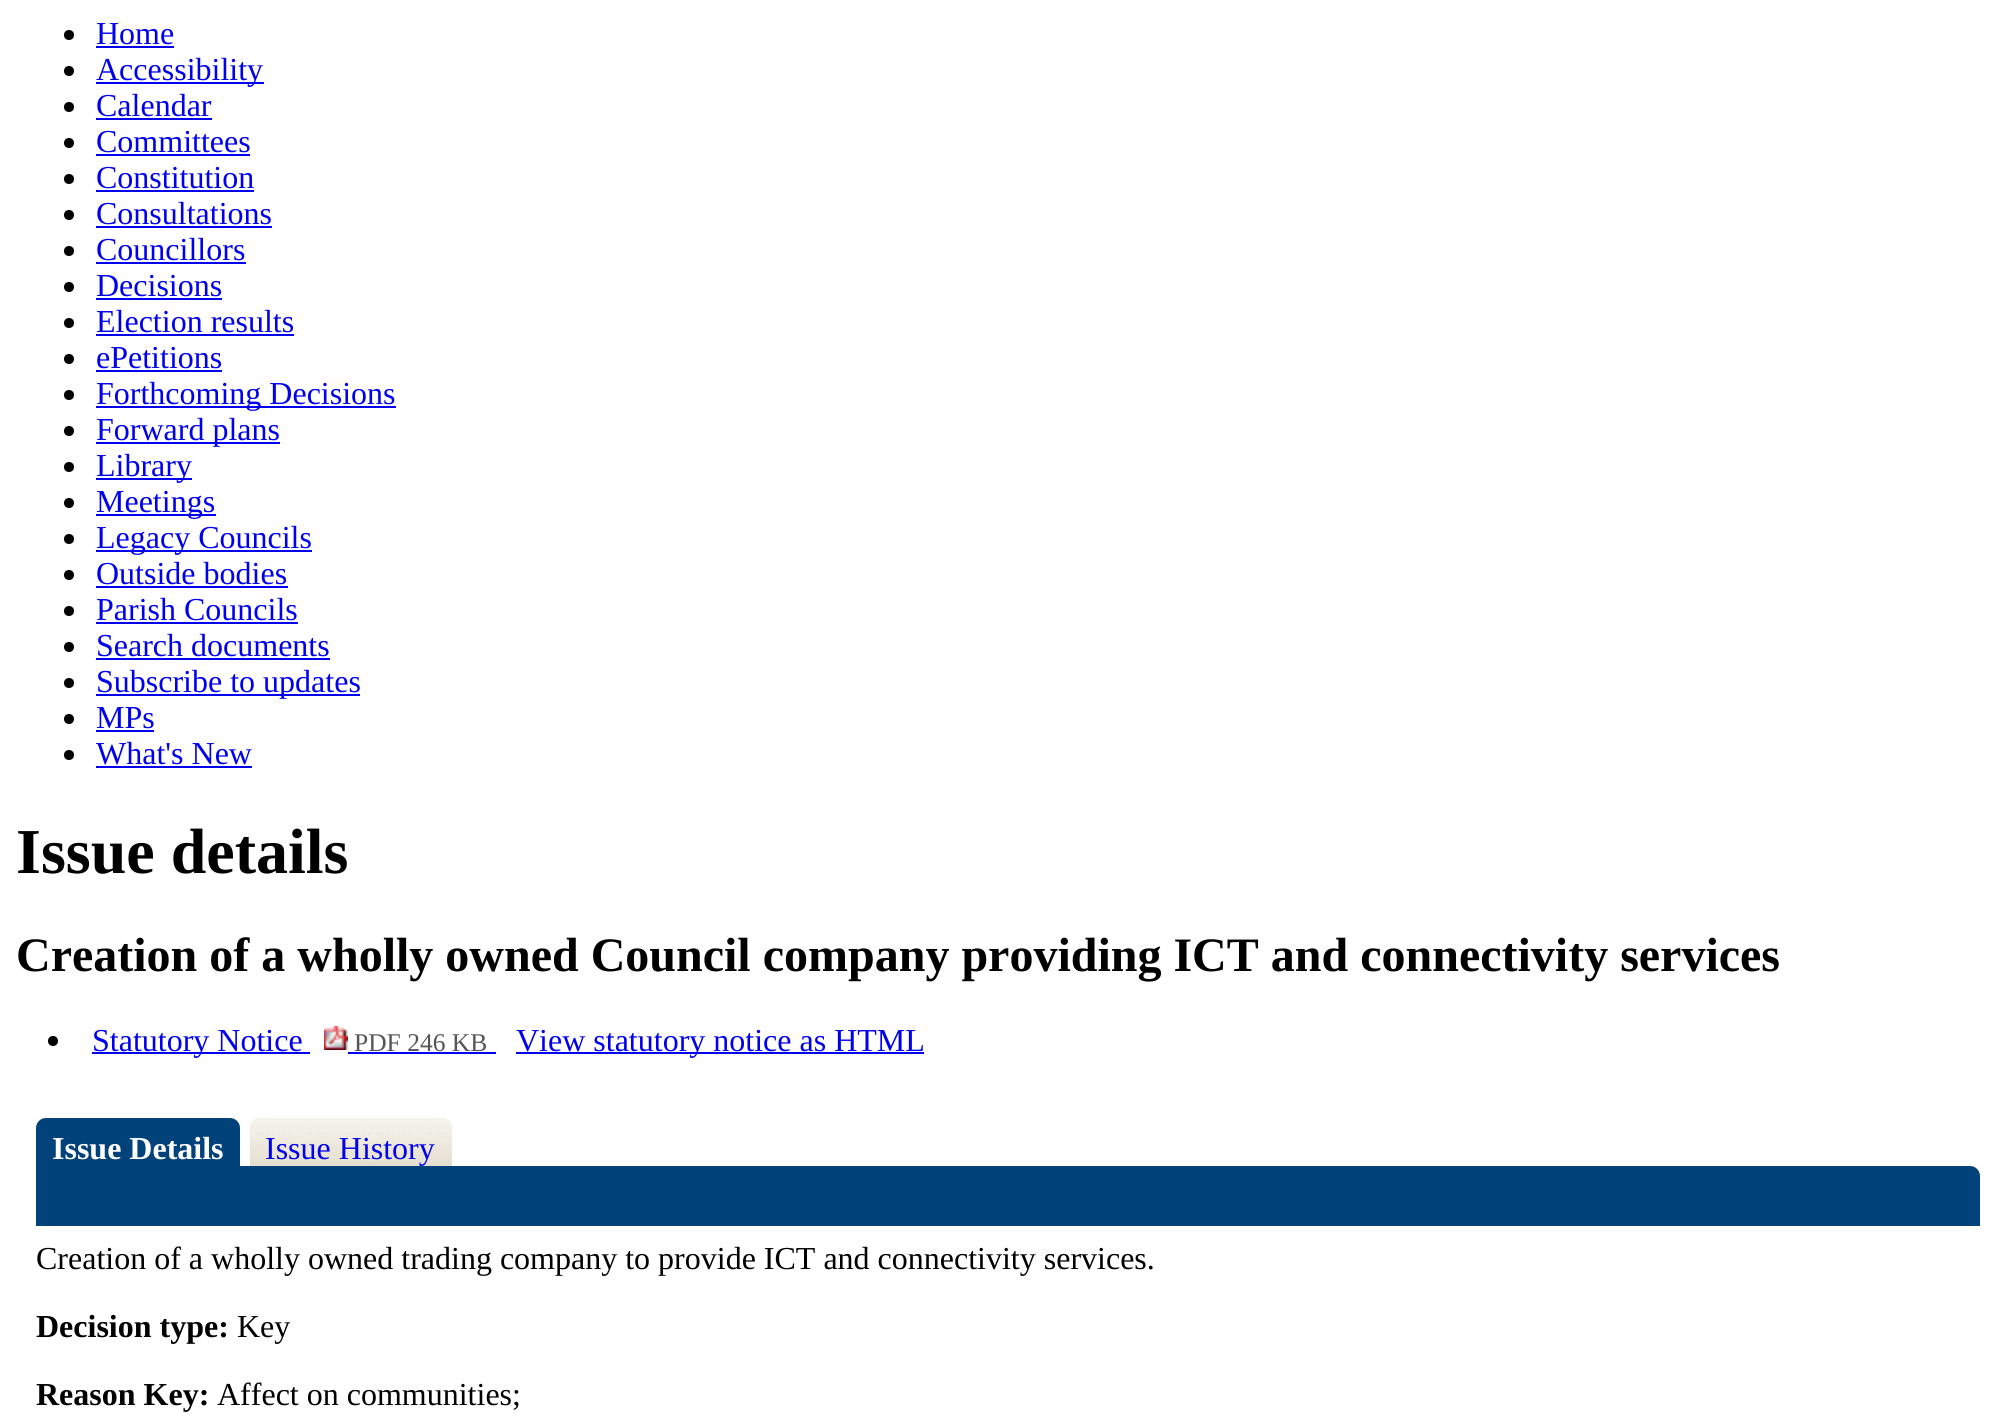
import math
import cairo

surface = cairo.ImageSurface(cairo.FORMAT_RGB24, 1996, 1423)
cr = cairo.Context(surface)
options = cairo.FontOptions()
options.set_hint_metrics(cairo.HINT_METRICS_OFF)
options.set_hint_style(cairo.HINT_STYLE_NONE)
cr.set_font_options(options)
cr.set_miter_limit(4)


def rgb(code):
    cr.set_source_rgb(*(v / 255 for v in bytes.fromhex(code[-6:])))


def image(path, x, y, w, h):
    cr.save()
    cr.set_source_surface(cairo.ImageSurface.create_from_png(path), x, y)
    cr.rectangle(x, y, w, h)
    cr.fill()
    cr.restore()


rgb("#ffffff")
cr.paint()
rgb("#000000")
cr.arc(69, 35, 5, 0, 2 * math.pi)
cr.fill()
rgb("#0000ee")
cr.rectangle(96, 46, 78, 2)
cr.fill()
rgb("#000000")
cr.arc(69, 71, 5, 0, 2 * math.pi)
cr.fill()
rgb("#0000ee")
cr.rectangle(96, 82, 168, 2)
cr.fill()
rgb("#000000")
cr.arc(69, 107, 5, 0, 2 * math.pi)
cr.fill()
rgb("#0000ee")
cr.rectangle(96, 118, 116, 2)
cr.fill()
rgb("#000000")
cr.arc(69, 143, 5, 0, 2 * math.pi)
cr.fill()
rgb("#0000ee")
cr.rectangle(96, 154, 154, 2)
cr.fill()
rgb("#000000")
cr.arc(69, 179, 5, 0, 2 * math.pi)
cr.fill()
rgb("#0000ee")
cr.rectangle(96, 190, 158, 2)
cr.fill()
rgb("#000000")
cr.arc(69, 215, 5, 0, 2 * math.pi)
cr.fill()
rgb("#0000ee")
cr.rectangle(96, 226, 176, 2)
cr.fill()
rgb("#000000")
cr.arc(69, 251, 5, 0, 2 * math.pi)
cr.fill()
rgb("#0000ee")
cr.rectangle(96, 262, 150, 2)
cr.fill()
rgb("#000000")
cr.arc(69, 287, 5, 0, 2 * math.pi)
cr.fill()
rgb("#0000ee")
cr.rectangle(96, 298, 126, 2)
cr.fill()
rgb("#000000")
cr.arc(69, 323, 5, 0, 2 * math.pi)
cr.fill()
rgb("#0000ee")
cr.rectangle(96, 334, 198, 2)
cr.fill()
rgb("#000000")
cr.arc(69, 359, 5, 0, 2 * math.pi)
cr.fill()
rgb("#0000ee")
cr.rectangle(96, 370, 126, 2)
cr.fill()
rgb("#000000")
cr.arc(69, 395, 5, 0, 2 * math.pi)
cr.fill()
rgb("#0000ee")
cr.rectangle(96, 406, 300, 2)
cr.fill()
rgb("#000000")
cr.arc(69, 431, 5, 0, 2 * math.pi)
cr.fill()
rgb("#0000ee")
cr.rectangle(96, 442, 184, 2)
cr.fill()
rgb("#000000")
cr.arc(69, 467, 5, 0, 2 * math.pi)
cr.fill()
rgb("#0000ee")
cr.rectangle(96, 478, 96, 2)
cr.fill()
rgb("#000000")
cr.arc(69, 503, 5, 0, 2 * math.pi)
cr.fill()
rgb("#0000ee")
cr.rectangle(96, 514, 120, 2)
cr.fill()
rgb("#000000")
cr.arc(69, 539, 5, 0, 2 * math.pi)
cr.fill()
rgb("#0000ee")
cr.rectangle(96, 550, 216, 2)
cr.fill()
rgb("#000000")
cr.arc(69, 575, 5, 0, 2 * math.pi)
cr.fill()
rgb("#0000ee")
cr.rectangle(96, 586, 192, 2)
cr.fill()
rgb("#000000")
cr.arc(69, 611, 5, 0, 2 * math.pi)
cr.fill()
rgb("#0000ee")
cr.rectangle(96, 622, 202, 2)
cr.fill()
rgb("#000000")
cr.arc(69, 647, 5, 0, 2 * math.pi)
cr.fill()
rgb("#0000ee")
cr.rectangle(96, 658, 234, 2)
cr.fill()
rgb("#000000")
cr.arc(69, 683, 5, 0, 2 * math.pi)
cr.fill()
rgb("#0000ee")
cr.rectangle(96, 694, 264, 2)
cr.fill()
rgb("#000000")
cr.arc(69, 719, 5, 0, 2 * math.pi)
cr.fill()
rgb("#0000ee")
cr.rectangle(96, 730, 58, 2)
cr.fill()
rgb("#000000")
cr.arc(69, 755, 5, 0, 2 * math.pi)
cr.fill()
rgb("#0000ee")
cr.rectangle(96, 766, 156, 2)
cr.fill()
rgb("#000000")
cr.arc(53, 1041, 5, 0, 2 * math.pi)
cr.fill()
rgb("#0000ee")
cr.rectangle(92, 1052, 218, 2)
cr.fill()
image("img/1.png", 324, 1026, 24, 24)
cr.rectangle(348, 1052, 148, 2)
cr.fill()
cr.rectangle(516, 1052, 408, 2)
cr.fill()
rgb("#01427a")
cr.new_path()
cr.move_to(46, 1118)
cr.line_to(230, 1118)
cr.curve_to(235.5, 1118, 240, 1122.5, 240, 1128)
cr.line_to(240, 1166)
cr.line_to(36, 1166)
cr.line_to(36, 1128)
cr.curve_to(36, 1122.5, 40.5, 1118, 46, 1118)
cr.close_path()
cr.fill()
rgb("#f3f3f3")
cr.new_path()
cr.move_to(260, 1118)
cr.line_to(442, 1118)
cr.curve_to(447.5, 1118, 452, 1122.5, 452, 1128)
cr.line_to(452, 1166)
cr.line_to(250, 1166)
cr.line_to(250, 1128)
cr.curve_to(250, 1122.5, 254.5, 1118, 260, 1118)
cr.close_path()
cr.fill()
image("img/2.png", 250, 1118, 202, 48)
rgb("#01427a")
cr.new_path()
cr.move_to(36, 1166)
cr.line_to(1970, 1166)
cr.curve_to(1975.5, 1166, 1980, 1170.5, 1980, 1176)
cr.line_to(1980, 1226)
cr.line_to(36, 1226)
cr.close_path()
cr.fill()
cr.select_font_face("Liberation Serif")
cr.set_font_size(32)
rgb("#0000ee")
for x, y, s in [
    (96, 44, "Home"),
    (96, 80, "Accessibility"),
    (96, 116, "Calendar"),
    (96, 152, "Committees"),
    (96, 188, "Constitution"),
    (96, 224, "Consultations"),
    (96, 260, "Councillors"),
    (96, 296, "Decisions"),
    (96, 332, "Election results"),
    (96, 368, "ePetitions"),
    (96, 404, "Forthcoming Decisions"),
    (96, 440, "Forward plans"),
    (96, 476, "Library"),
    (96, 512, "Meetings"),
    (96, 548, "Legacy Councils"),
    (96, 584, "Outside bodies"),
    (96, 620, "Parish Councils"),
    (96, 656, "Search documents"),
    (96, 692, "Subscribe to updates"),
    (96, 728, "MPs"),
    (96, 764, "What's New"),
]:
    cr.move_to(x, y)
    cr.show_text(s)
cr.select_font_face("Liberation Serif", cairo.FONT_SLANT_NORMAL, cairo.FONT_WEIGHT_BOLD)
cr.set_font_size(64)
rgb("#000000")
cr.move_to(16, 873)
cr.show_text("Issue details")
cr.set_font_size(48)
cr.move_to(16, 971)
cr.show_text("Creation of a wholly owned Council company providing ICT and connectivity services")
cr.select_font_face("Liberation Serif")
cr.set_font_size(32)
rgb("#0000ee")
cr.move_to(92, 1051)
cr.show_text("Statutory Notice")
cr.set_font_size(25.5)
rgb("#555555")
cr.move_to(354, 1051)
cr.show_text("PDF 246 KB")
cr.set_font_size(32)
rgb("#0000ee")
cr.move_to(516, 1051)
cr.show_text("View statutory notice as HTML")
cr.select_font_face("Liberation Serif", cairo.FONT_SLANT_NORMAL, cairo.FONT_WEIGHT_BOLD)
rgb("#ffffff")
cr.move_to(52, 1159)
cr.show_text("Issue Details")
cr.select_font_face("Liberation Serif")
rgb("#0000ee")
cr.move_to(265, 1159)
cr.show_text("Issue History")
rgb("#000000")
cr.move_to(36, 1269)
cr.show_text("Creation of a wholly owned trading company to provide ICT and connectivity services.")
cr.select_font_face("Liberation Serif", cairo.FONT_SLANT_NORMAL, cairo.FONT_WEIGHT_BOLD)
cr.move_to(36, 1337)
cr.show_text("Decision type:")
cr.select_font_face("Liberation Serif")
cr.move_to(237, 1337)
cr.show_text("Key")
cr.select_font_face("Liberation Serif", cairo.FONT_SLANT_NORMAL, cairo.FONT_WEIGHT_BOLD)
cr.move_to(36, 1405)
cr.show_text("Reason Key:")
cr.select_font_face("Liberation Serif")
cr.move_to(217, 1405)
cr.show_text("Affect on communities;")
surface.write_to_png("page.png")
